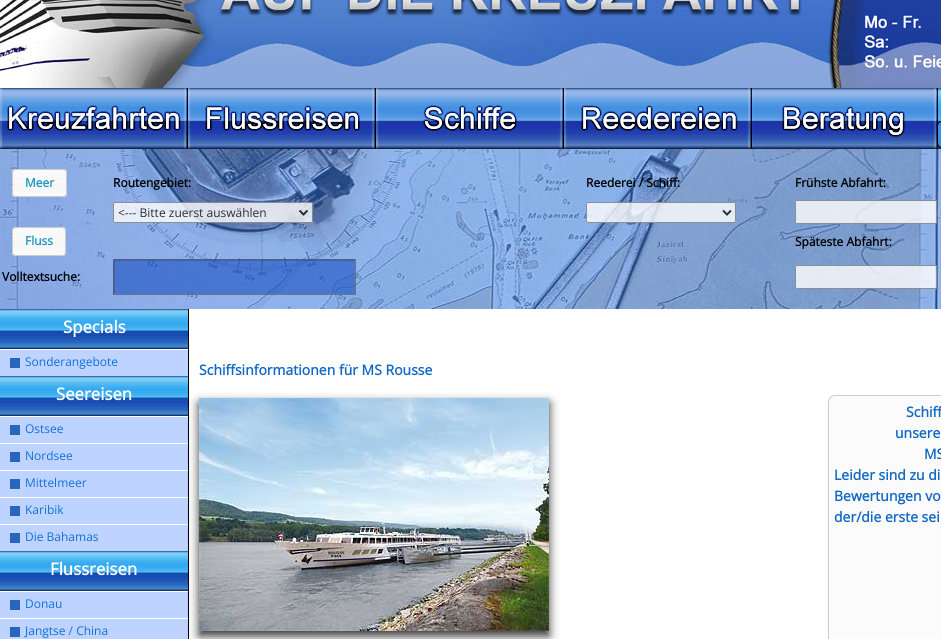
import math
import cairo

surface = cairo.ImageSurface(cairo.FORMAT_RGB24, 941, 639)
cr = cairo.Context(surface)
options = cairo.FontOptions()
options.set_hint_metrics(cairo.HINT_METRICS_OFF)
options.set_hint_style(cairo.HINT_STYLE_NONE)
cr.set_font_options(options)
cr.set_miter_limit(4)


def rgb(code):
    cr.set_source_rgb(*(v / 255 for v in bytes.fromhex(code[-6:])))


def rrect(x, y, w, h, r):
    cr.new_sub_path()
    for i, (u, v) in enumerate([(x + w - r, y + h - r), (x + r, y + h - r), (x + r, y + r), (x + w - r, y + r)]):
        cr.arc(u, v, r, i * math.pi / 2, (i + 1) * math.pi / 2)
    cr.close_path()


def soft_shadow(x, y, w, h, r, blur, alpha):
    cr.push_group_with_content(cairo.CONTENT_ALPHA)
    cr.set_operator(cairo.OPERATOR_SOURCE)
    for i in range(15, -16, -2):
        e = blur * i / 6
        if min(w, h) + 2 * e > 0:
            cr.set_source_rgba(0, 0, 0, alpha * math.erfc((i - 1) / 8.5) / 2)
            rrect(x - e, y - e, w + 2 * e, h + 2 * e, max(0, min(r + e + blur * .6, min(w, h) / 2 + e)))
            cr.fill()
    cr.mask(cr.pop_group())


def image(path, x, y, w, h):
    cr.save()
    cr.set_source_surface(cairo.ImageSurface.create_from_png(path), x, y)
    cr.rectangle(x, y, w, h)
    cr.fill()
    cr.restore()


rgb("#ffffff")
cr.paint()
image("img/1.png", 0, 0, 941, 88)
image("img/2.png", 938, 88, 3, 61)
image("img/3.png", 0, 88, 188, 61)
image("img/4.png", 188, 88, 188, 61)
image("img/5.png", 376, 88, 188, 61)
image("img/6.png", 564, 88, 188, 61)
rgb("#3c8ceb")
rrect(937.5, 121.5, 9, 26, 4.5)
cr.fill_preserve()
rgb("#000000")
cr.set_line_width(1)
cr.stroke()
image("img/7.png", 752, 88, 186, 61)
image("img/8.png", 0, 149, 941, 160)
image("img/9.png", 12, 169, 55, 28)
rrect(12.5, 169.5, 54, 27, 3.5)
rgb("#cccccc")
cr.stroke()
cr.set_source_rgba(1, 1, 1, 0.8)
rrect(113, 202, 200, 21, 2)
cr.fill()
rrect(113.5, 202.5, 199, 20, 1.5)
cr.set_source_rgba(0.463, 0.463, 0.463, 0.8)
cr.stroke()
cr.new_path()
cr.move_to(299.5, 210.5)
cr.line_to(303.5, 214.5)
cr.line_to(307.5, 210.5)
cr.set_source_rgba(0, 0, 0, 0.8)
cr.set_line_width(2)
cr.stroke()
cr.set_source_rgba(1, 1, 1, 0.8)
rrect(586, 202, 150, 21, 2)
cr.fill()
rrect(586.5, 202.5, 149, 20, 1.5)
cr.set_source_rgba(0.463, 0.463, 0.463, 0.8)
cr.set_line_width(1)
cr.stroke()
cr.new_path()
cr.move_to(723, 210.5)
cr.line_to(727, 214.5)
cr.line_to(731, 210.5)
rgb("#2e2f31")
cr.set_line_width(2)
cr.stroke()
cr.set_source_rgba(1, 1, 1, 0.8)
rrect(795, 200, 142, 24, 2)
cr.fill()
rrect(795.5, 200.5, 141, 23, 1.5)
cr.set_source_rgba(0.463, 0.463, 0.463, 0.8)
cr.set_line_width(1)
cr.stroke()
image("img/10.png", 12, 227, 54, 29)
rrect(12.5, 227.5, 53, 28, 3.5)
rgb("#cccccc")
cr.stroke()
cr.set_source_rgba(0, 0.239, 0.729, 0.5)
cr.rectangle(113, 259, 243, 36)
cr.fill()
cr.set_source_rgba(0.31, 0.31, 0.31, 0.5)
cr.new_path()
cr.move_to(113, 259)
cr.line_to(356, 259)
cr.line_to(354, 261)
cr.line_to(115, 261)
cr.close_path()
cr.fill()
cr.set_source_rgba(0.463, 0.463, 0.463, 0.5)
cr.new_path()
cr.move_to(356, 259)
cr.line_to(356, 295)
cr.line_to(354, 293)
cr.line_to(354, 261)
cr.close_path()
cr.fill()
cr.new_path()
cr.move_to(356, 295)
cr.line_to(113, 295)
cr.line_to(115, 293)
cr.line_to(354, 293)
cr.close_path()
cr.fill()
cr.set_source_rgba(0.31, 0.31, 0.31, 0.5)
cr.new_path()
cr.move_to(113, 295)
cr.line_to(113, 259)
cr.line_to(115, 261)
cr.line_to(115, 293)
cr.close_path()
cr.fill()
cr.set_source_rgba(1, 1, 1, 0.8)
rrect(795, 265, 142, 24, 2)
cr.fill()
rrect(795.5, 265.5, 141, 23, 1.5)
cr.set_source_rgba(0.463, 0.463, 0.463, 0.8)
cr.stroke()
rgb("#000000")
cr.rectangle(188, 309, 1, 330)
cr.fill()
image("img/11.png", 0, 309, 188, 40)
rgb("#bed3ff")
cr.rectangle(0, 350, 188, 26)
cr.fill()
rgb("#2866bd")
cr.rectangle(10, 358, 10, 10)
cr.fill()
image("img/11.png", 0, 376, 188, 40)
for x, y, w, h, color in [
    (0, 417, 188, 26, "#bed3ff"),
    (10, 425, 10, 10, "#2866bd"),
    (0, 444, 188, 26, "#bed3ff"),
    (10, 452, 10, 10, "#2866bd"),
    (0, 471, 188, 26, "#bed3ff"),
    (10, 479, 10, 10, "#2866bd"),
    (0, 498, 188, 26, "#bed3ff"),
    (10, 506, 10, 10, "#2866bd"),
    (0, 525, 188, 26, "#bed3ff"),
    (10, 533, 10, 10, "#2866bd"),
]:
    rgb(color)
    cr.rectangle(x, y, w, h)
    cr.fill()
image("img/11.png", 0, 551, 188, 40)
for x, y, w, h, color in [
    (0, 592, 188, 26, "#bed3ff"),
    (10, 600, 10, 10, "#2866bd"),
    (0, 619, 188, 20, "#bed3ff"),
    (10, 627, 10, 10, "#2866bd"),
]:
    rgb(color)
    cr.rectangle(x, y, w, h)
    cr.fill()
rgb("#000000")
soft_shadow(199, 403, 350, 233, 0, 5, 0.8)
image("img/12.png", 199, 398, 350, 233)
rgb("#fbfbfb")
rrect(828.5, 395.5, 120, 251, 6.5)
cr.fill_preserve()
rgb("#cccccc")
cr.stroke()
cr.select_font_face("Open Sans", cairo.FONT_SLANT_NORMAL, cairo.FONT_WEIGHT_BOLD)
cr.set_font_size(12)
rgb("#1c94c4")
cr.move_to(25, 187)
cr.show_text("Meer")
rgb("#000000")
for x, y, s in [
    (113, 187, "Routengebiet:"),
    (586, 187, "Reederei / Schiff:"),
    (795, 187, "Frühste Abfahrt:"),
]:
    cr.move_to(x, y)
    cr.show_text(s)
cr.select_font_face("Open Sans")
rgb("#2d2e31")
cr.move_to(118, 217)
cr.show_text("<--- Bitte zuerst auswählen")
cr.select_font_face("Open Sans", cairo.FONT_SLANT_NORMAL, cairo.FONT_WEIGHT_BOLD)
rgb("#1c94c4")
cr.move_to(25, 245)
cr.show_text("Fluss")
rgb("#000000")
cr.move_to(795, 246)
cr.show_text("Späteste Abfahrt:")
cr.move_to(2, 281)
cr.show_text("Volltextsuche:")
cr.set_font_size(16.75)
rgb("#ffffff")
cr.move_to(63, 333)
cr.show_text("Specials")
cr.select_font_face("Open Sans")
cr.set_font_size(12)
rgb("#0f71db")
cr.move_to(25, 366)
cr.show_text("Sonderangebote")
cr.select_font_face("Open Sans", cairo.FONT_SLANT_NORMAL, cairo.FONT_WEIGHT_BOLD)
cr.set_font_size(16.75)
rgb("#ffffff")
cr.move_to(56, 400)
cr.show_text("Seereisen")
cr.select_font_face("Open Sans")
cr.set_font_size(12)
rgb("#0f71db")
for x, y, s in [
    (25, 433, "Ostsee"),
    (25, 460, "Nordsee"),
    (25, 487, "Mittelmeer"),
    (25, 514, "Karibik"),
    (25, 541, "Die Bahamas"),
]:
    cr.move_to(x, y)
    cr.show_text(s)
cr.select_font_face("Open Sans", cairo.FONT_SLANT_NORMAL, cairo.FONT_WEIGHT_BOLD)
cr.set_font_size(16.75)
rgb("#ffffff")
cr.move_to(50, 575)
cr.show_text("Flussreisen")
cr.select_font_face("Open Sans")
cr.set_font_size(12)
rgb("#0f71db")
cr.move_to(25, 608)
cr.show_text("Donau")
cr.move_to(25, 635)
cr.show_text("Jangtse / China")
cr.select_font_face("Open Sans", cairo.FONT_SLANT_NORMAL, cairo.FONT_WEIGHT_BOLD)
cr.set_font_size(14)
rgb("#1268c4")
for x, y, s in [
    (199, 375, "Schiffsinformationen für MS Rousse"),
    (906, 417, "Schiff"),
    (895, 438, "unsere"),
    (924, 459, "MS"),
    (834, 480, "Leider sind zu di"),
    (834, 501, "Bewertungen vo"),
    (834, 522, "der/die erste sei"),
]:
    cr.move_to(x, y)
    cr.show_text(s)
surface.write_to_png("page.png")
